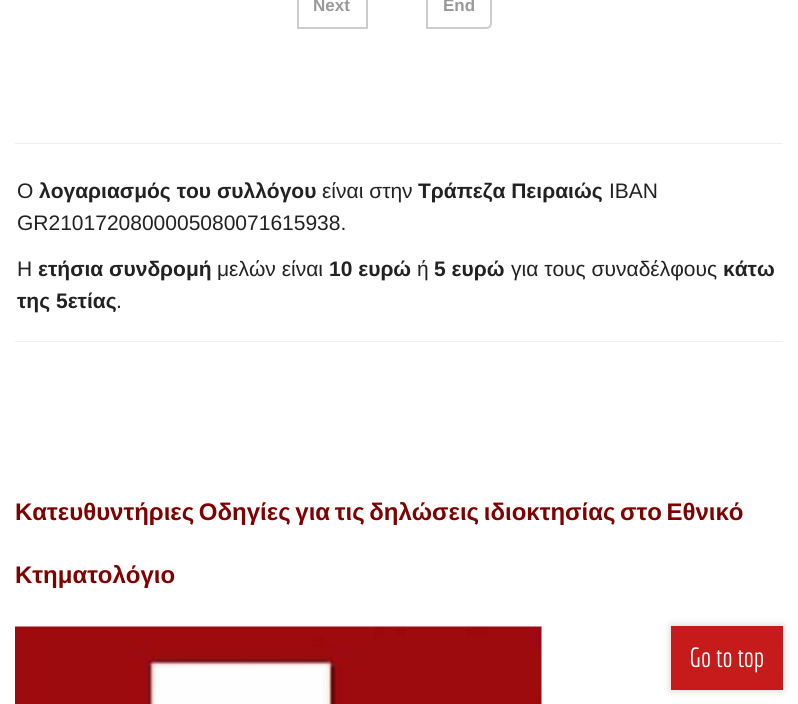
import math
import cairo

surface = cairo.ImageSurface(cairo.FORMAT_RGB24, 798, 704)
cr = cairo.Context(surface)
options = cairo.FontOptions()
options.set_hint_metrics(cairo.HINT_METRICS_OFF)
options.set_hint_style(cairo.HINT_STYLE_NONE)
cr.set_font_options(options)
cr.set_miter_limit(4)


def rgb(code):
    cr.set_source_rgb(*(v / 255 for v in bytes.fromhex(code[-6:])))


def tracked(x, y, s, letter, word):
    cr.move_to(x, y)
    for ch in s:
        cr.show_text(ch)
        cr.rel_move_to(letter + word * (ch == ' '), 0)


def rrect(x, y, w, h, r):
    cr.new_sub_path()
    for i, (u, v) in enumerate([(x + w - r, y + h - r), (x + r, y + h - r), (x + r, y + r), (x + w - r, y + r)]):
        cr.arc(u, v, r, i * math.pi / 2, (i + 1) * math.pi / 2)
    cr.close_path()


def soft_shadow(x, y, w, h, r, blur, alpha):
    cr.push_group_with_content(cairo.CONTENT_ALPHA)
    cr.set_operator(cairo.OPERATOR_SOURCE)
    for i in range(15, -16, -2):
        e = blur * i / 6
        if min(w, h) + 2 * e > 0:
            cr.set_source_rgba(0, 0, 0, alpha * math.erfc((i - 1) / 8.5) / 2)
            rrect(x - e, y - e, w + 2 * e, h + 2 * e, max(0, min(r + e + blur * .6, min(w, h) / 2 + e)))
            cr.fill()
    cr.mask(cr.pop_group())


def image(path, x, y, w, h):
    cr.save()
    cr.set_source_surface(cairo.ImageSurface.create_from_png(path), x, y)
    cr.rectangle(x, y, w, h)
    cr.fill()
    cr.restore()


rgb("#ffffff")
cr.paint()
cr.rectangle(298, -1, 69, 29)
rgb("#cccccc")
cr.stroke()
cr.new_path()
cr.move_to(427, -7)
cr.line_to(486, -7)
cr.curve_to(489, -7, 491, -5, 491, -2)
cr.line_to(491, 23)
cr.curve_to(491, 26, 489, 28, 486, 28)
cr.line_to(427, 28)
cr.close_path()
cr.stroke()
rgb("#eeeeee")
cr.rectangle(15, 143, 768, 1)
cr.fill()
cr.rectangle(15, 341, 768, 1)
cr.fill()
image("img/1.png", 15, 626, 527, 78)
rgb("#000000")
soft_shadow(671, 626, 112, 64, 0, 4, 0.2)
rgb("#c71a1a")
cr.rectangle(671, 626, 112, 64)
cr.fill()
cr.select_font_face("Liberation Sans", cairo.FONT_SLANT_NORMAL, cairo.FONT_WEIGHT_BOLD)
cr.set_font_size(17)
rgb("#999999")
cr.move_to(313, 11)
cr.show_text("Next")
cr.move_to(443, 11)
cr.show_text("End")
cr.select_font_face("Liberation Sans")
cr.set_font_size(21)
rgb("#222222")
cr.move_to(17, 198)
cr.show_text("Ο")
cr.select_font_face("Liberation Sans", cairo.FONT_SLANT_NORMAL, cairo.FONT_WEIGHT_BOLD)
cr.move_to(39, 198)
cr.show_text("λογαριασμός του συλλόγου")
cr.select_font_face("Liberation Sans")
cr.move_to(322, 198)
cr.show_text("είναι στην")
cr.select_font_face("Liberation Sans", cairo.FONT_SLANT_NORMAL, cairo.FONT_WEIGHT_BOLD)
cr.move_to(418, 198)
cr.show_text("Τράπεζα Πειραιώς")
cr.select_font_face("Liberation Sans")
for x, y, s in [
    (609, 198, "IBAN"),
    (17, 230, "GR2101720800005080071615938."),
    (17, 276, "Η"),
]:
    cr.move_to(x, y)
    cr.show_text(s)
cr.select_font_face("Liberation Sans", cairo.FONT_SLANT_NORMAL, cairo.FONT_WEIGHT_BOLD)
cr.move_to(38, 276)
cr.show_text("ετήσια συνδρομή")
cr.select_font_face("Liberation Sans")
cr.move_to(217, 276)
cr.show_text("μελών είναι")
cr.select_font_face("Liberation Sans", cairo.FONT_SLANT_NORMAL, cairo.FONT_WEIGHT_BOLD)
cr.move_to(329, 276)
cr.show_text("10 ευρώ")
cr.select_font_face("Liberation Sans")
cr.move_to(417, 276)
cr.show_text("ή")
cr.select_font_face("Liberation Sans", cairo.FONT_SLANT_NORMAL, cairo.FONT_WEIGHT_BOLD)
cr.move_to(434, 276)
cr.show_text("5 ευρώ")
cr.select_font_face("Liberation Sans")
cr.move_to(511, 276)
cr.show_text("για τους συναδέλφους")
cr.select_font_face("Liberation Sans", cairo.FONT_SLANT_NORMAL, cairo.FONT_WEIGHT_BOLD)
cr.move_to(723, 276)
cr.show_text("κάτω")
cr.move_to(17, 308)
cr.show_text("της 5ετίας")
cr.select_font_face("Liberation Sans")
cr.move_to(116, 308)
cr.show_text(".")
cr.select_font_face("Liberation Sans", cairo.FONT_SLANT_NORMAL, cairo.FONT_WEIGHT_BOLD)
cr.set_font_size(24)
rgb("#800000")
tracked(15, 520, "Κατευθυντήριες Οδηγίες για τις δηλώσεις ιδιοκτησίας στο Εθνικό", 0, -2)
cr.move_to(15, 583)
cr.show_text("Κτηματολόγιο")
cr.select_font_face("Economica")
cr.set_font_size(27)
rgb("#ffffff")
cr.move_to(689, 667)
cr.show_text("Go to top")
surface.write_to_png("page.png")
